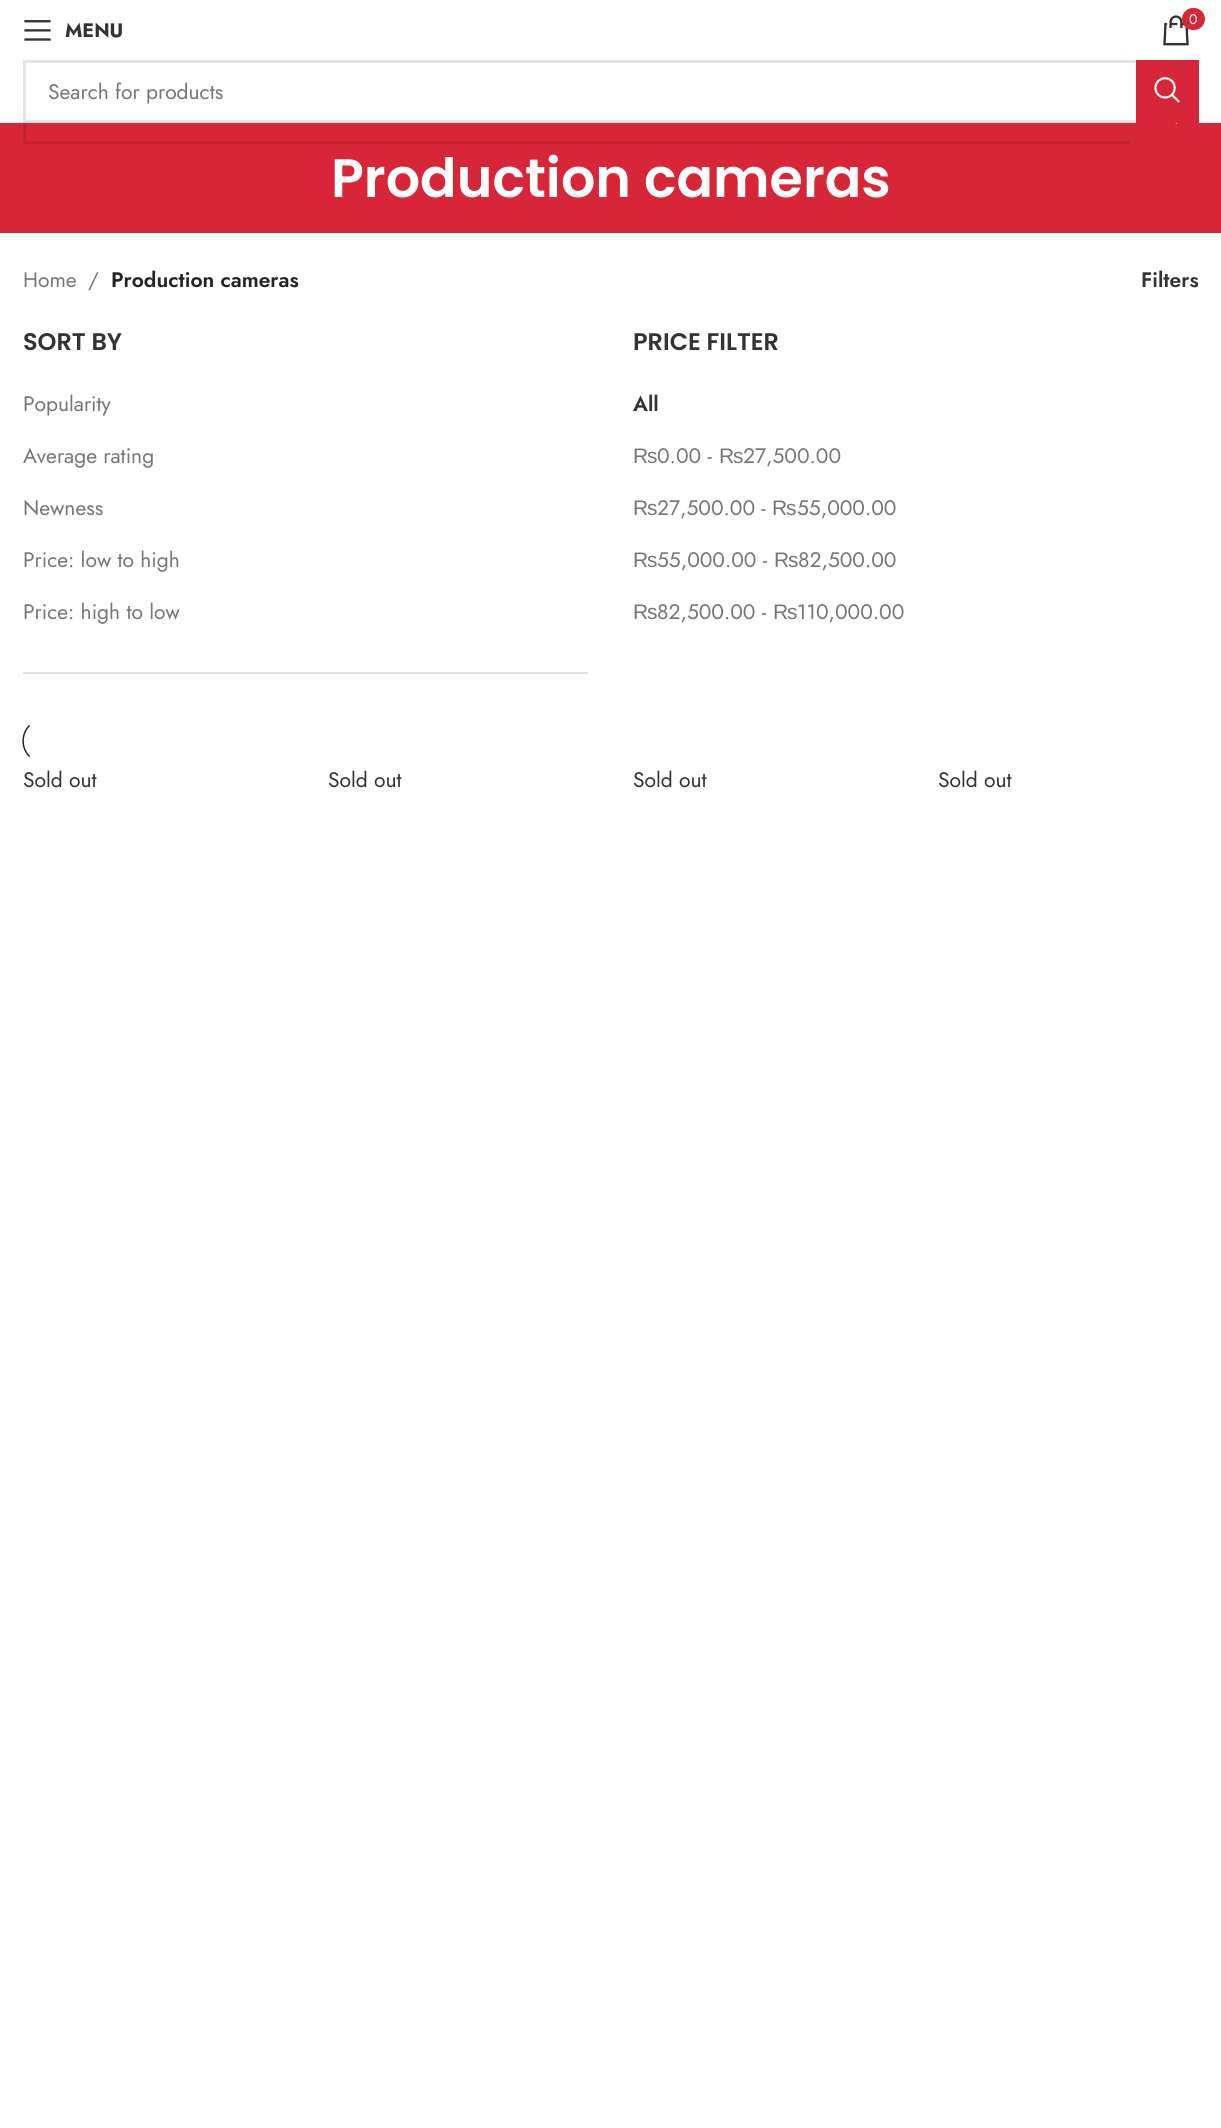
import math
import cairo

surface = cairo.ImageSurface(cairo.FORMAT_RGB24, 1221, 2128)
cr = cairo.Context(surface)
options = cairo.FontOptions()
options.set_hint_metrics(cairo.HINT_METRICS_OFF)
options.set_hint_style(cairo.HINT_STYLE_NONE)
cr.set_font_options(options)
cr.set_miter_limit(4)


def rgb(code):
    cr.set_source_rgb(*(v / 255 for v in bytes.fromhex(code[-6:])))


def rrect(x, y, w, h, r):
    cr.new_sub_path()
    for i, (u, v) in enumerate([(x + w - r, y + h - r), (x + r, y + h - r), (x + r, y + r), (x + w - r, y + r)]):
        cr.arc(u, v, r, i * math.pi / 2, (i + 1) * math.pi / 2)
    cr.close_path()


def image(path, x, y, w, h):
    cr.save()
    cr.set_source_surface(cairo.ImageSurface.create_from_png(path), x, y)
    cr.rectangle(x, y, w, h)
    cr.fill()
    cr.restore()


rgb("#ffffff")
cr.paint()
image("img/1.png", 1163, 15, 26, 31)
rgb("#d72637")
rrect(1182, 8, 23, 22, 11)
cr.fill()
image("img/2.png", 24, 20, 27, 21)
cr.rectangle(0, 123, 1221, 110)
cr.fill()
cr.rectangle(24.5, 76.5, 1173, 66)
cr.set_source_rgba(0, 0, 0, 0.1)
cr.set_line_width(3)
cr.stroke()
rgb("#ffffff")
cr.rectangle(23, 75, 1176, 48)
cr.fill()
cr.rectangle(24.5, 61.5, 1173, 60)
rgb("#e6e6e6")
cr.stroke()
rgb("#d72637")
cr.rectangle(1136, 60, 63, 63)
cr.fill()
image("img/3.png", 1154, 77, 26, 26)
rgb("#e4e4e4")
cr.rectangle(23, 672, 565, 2)
cr.fill()
cr.new_path()
cr.move_to(29.5, 756.5)
cr.curve_to(21, 748, 21, 734, 29.5, 725.5)
rgb("#242424")
cr.set_line_width(1.5)
cr.stroke()
rgb("#d72637")
cr.rectangle(1130, 123, 69, 21)
cr.fill()
image("img/4.png", 1175, 123, 2, 1)
cr.select_font_face("Jost")
cr.set_font_size(14)
rgb("#ffffff")
cr.move_to(1189, 24)
cr.show_text("0")
cr.select_font_face("Jost", cairo.FONT_SLANT_NORMAL, cairo.FONT_WEIGHT_BOLD)
cr.set_font_size(19.5)
rgb("#333333")
cr.move_to(65, 37)
cr.show_text("MENU")
cr.select_font_face("Jost")
cr.set_font_size(21)
rgb("#767676")
cr.move_to(48, 99)
cr.show_text("Search for products")
cr.select_font_face("Poppins SemiBold")
cr.set_font_size(54)
rgb("#ffffff")
cr.move_to(331, 197)
cr.show_text("Production cameras")
cr.select_font_face("Jost")
cr.set_font_size(21)
rgb("#767676")
cr.move_to(23, 287)
cr.show_text("Home")
cr.move_to(88, 287)
cr.show_text("/")
cr.select_font_face("Jost SemiBold")
rgb("#242424")
cr.move_to(111, 287)
cr.show_text("Production cameras")
rgb("#333333")
cr.move_to(1141, 287)
cr.show_text("Filters")
cr.select_font_face("Poppins SemiBold")
cr.set_font_size(24)
cr.move_to(23, 350)
cr.show_text("SORT BY")
cr.select_font_face("Jost")
cr.set_font_size(21)
rgb("#767676")
for x, y, s in [
    (23, 411, "Popularity"),
    (23, 463, "Average rating"),
    (23, 515, "Newness"),
    (23, 567, "Price: low to high"),
    (23, 619, "Price: high to low"),
]:
    cr.move_to(x, y)
    cr.show_text(s)
cr.select_font_face("Poppins SemiBold")
cr.set_font_size(24)
rgb("#333333")
cr.move_to(633, 350)
cr.show_text("PRICE FILTER")
cr.select_font_face("Jost SemiBold")
cr.set_font_size(21)
cr.move_to(633, 411)
cr.show_text("All")
cr.select_font_face("Liberation Sans")
rgb("#767676")
cr.move_to(633, 463)
cr.show_text("₨")
cr.select_font_face("Jost")
cr.move_to(657, 463)
cr.show_text("0.00 -")
cr.select_font_face("Liberation Sans")
cr.move_to(719, 463)
cr.show_text("₨")
cr.select_font_face("Jost")
cr.move_to(743, 463)
cr.show_text("27,500.00")
cr.select_font_face("Liberation Sans")
cr.move_to(633, 515)
cr.show_text("₨")
cr.select_font_face("Jost")
cr.move_to(657, 515)
cr.show_text("27,500.00 -")
cr.select_font_face("Liberation Sans")
cr.move_to(772, 515)
cr.show_text("₨")
cr.select_font_face("Jost")
cr.move_to(797, 515)
cr.show_text("55,000.00")
cr.select_font_face("Liberation Sans")
cr.move_to(633, 567)
cr.show_text("₨")
cr.select_font_face("Jost")
cr.move_to(657, 567)
cr.show_text("55,000.00 -")
cr.select_font_face("Liberation Sans")
cr.move_to(774, 567)
cr.show_text("₨")
cr.select_font_face("Jost")
cr.move_to(798, 567)
cr.show_text("82,500.00")
cr.select_font_face("Liberation Sans")
cr.move_to(633, 619)
cr.show_text("₨")
cr.select_font_face("Jost")
cr.move_to(657, 619)
cr.show_text("82,500.00 -")
cr.select_font_face("Liberation Sans")
cr.move_to(773, 619)
cr.show_text("₨")
cr.select_font_face("Jost")
cr.move_to(797, 619)
cr.show_text("110,000.00")
rgb("#333333")
for x, y, s in [
    (23, 787, "Sold out"),
    (328, 787, "Sold out"),
    (633, 787, "Sold out"),
    (938, 787, "Sold out"),
]:
    cr.move_to(x, y)
    cr.show_text(s)
surface.write_to_png("page.png")
